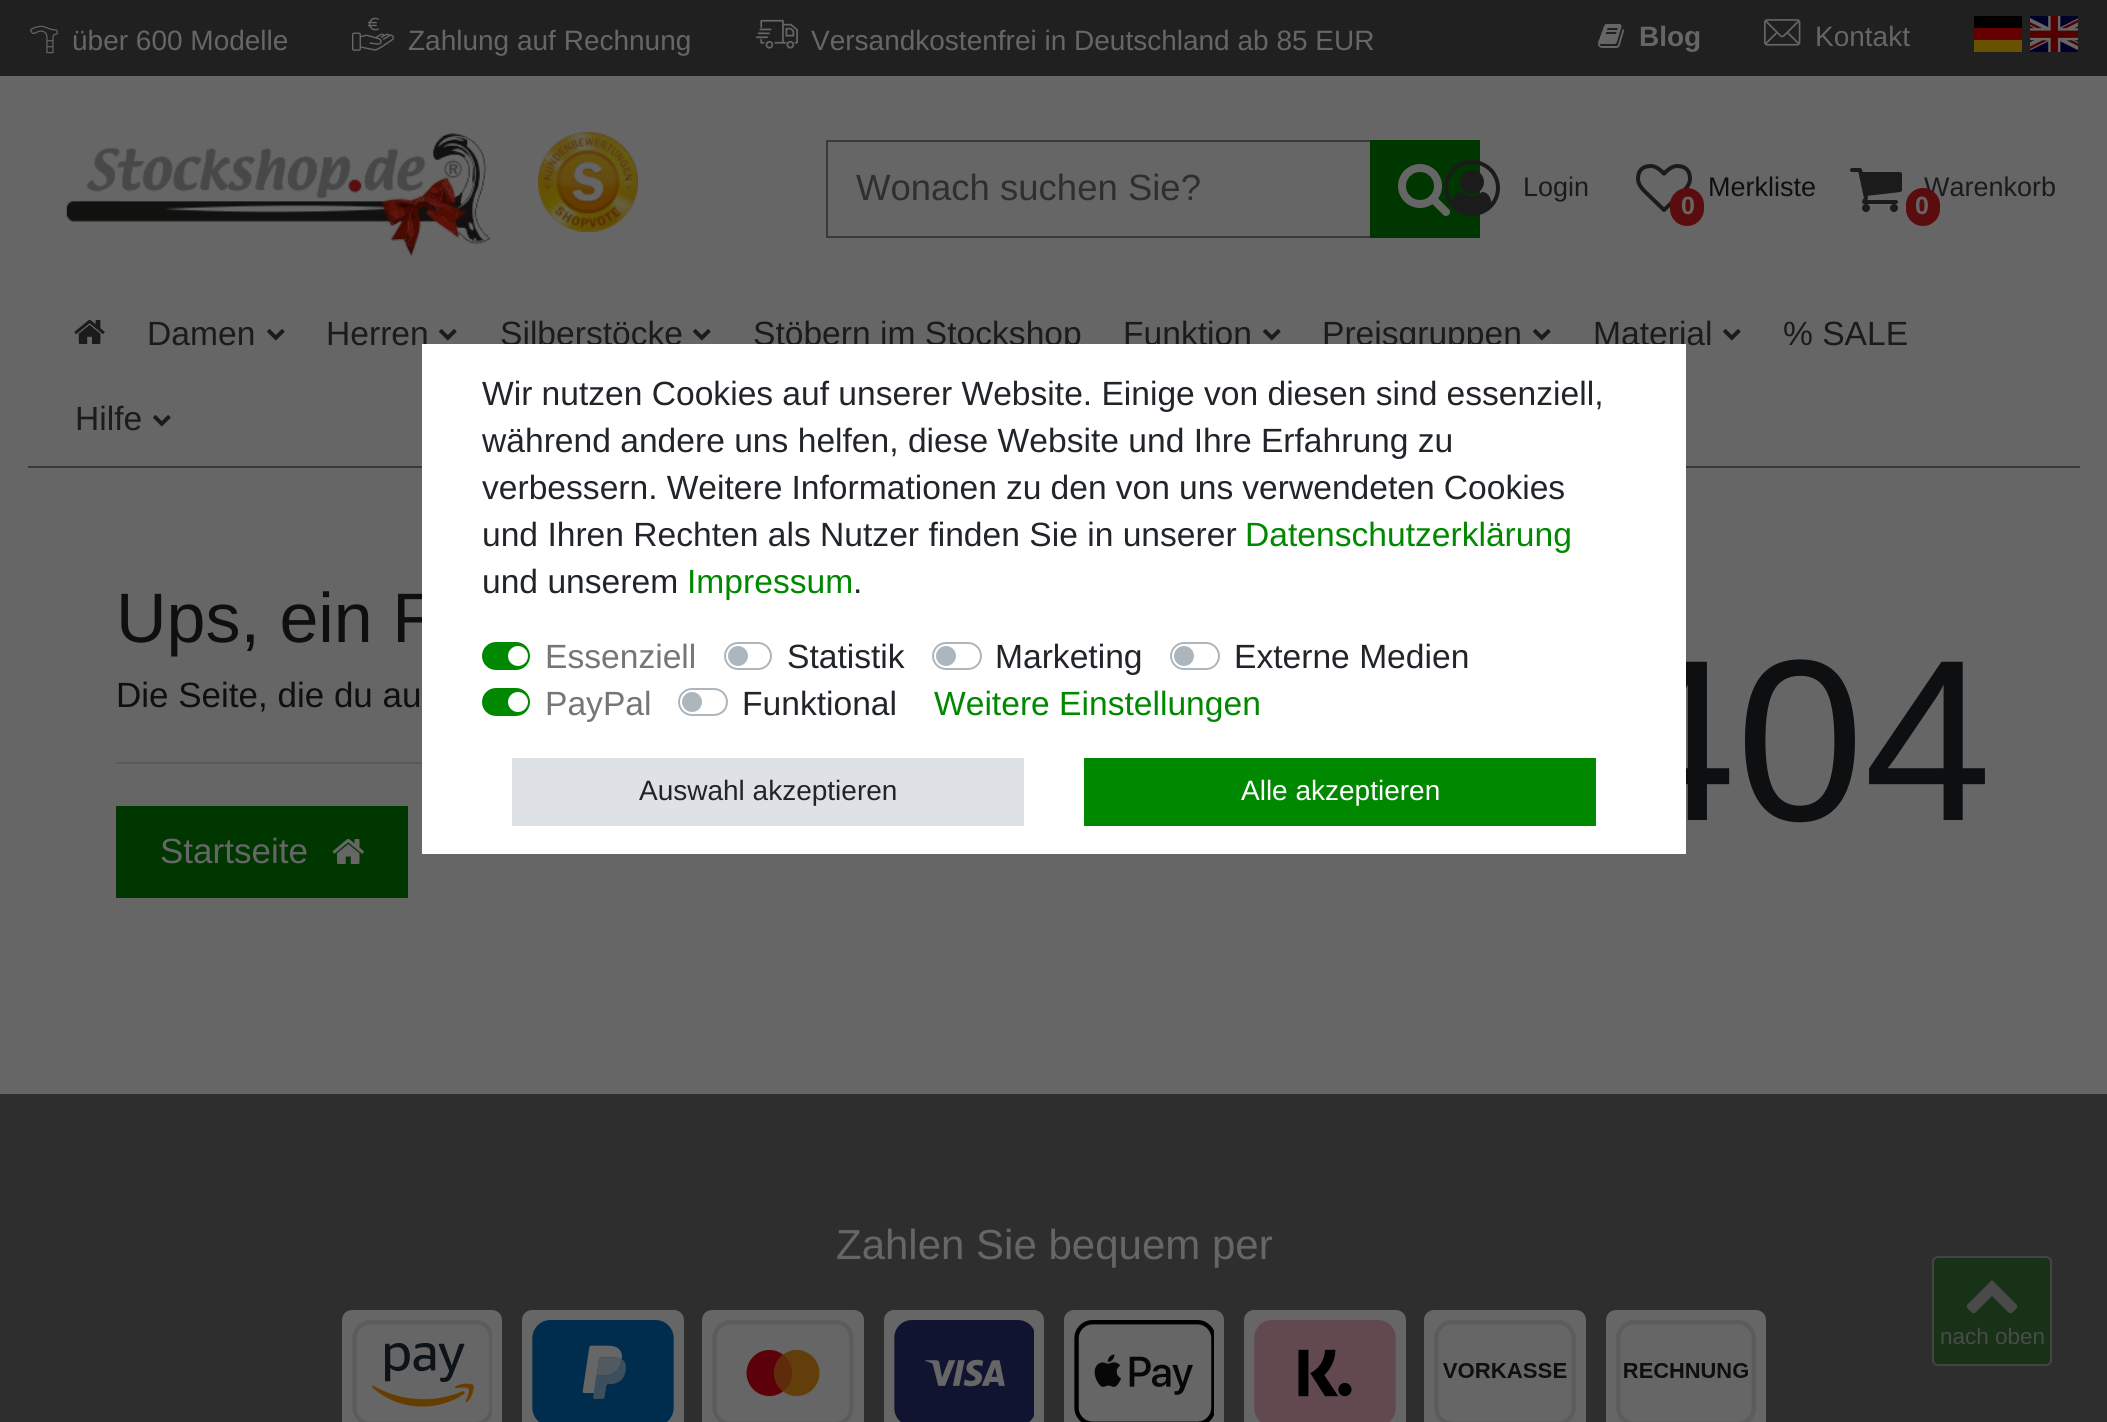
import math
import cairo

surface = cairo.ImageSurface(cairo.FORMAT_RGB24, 2107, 1422)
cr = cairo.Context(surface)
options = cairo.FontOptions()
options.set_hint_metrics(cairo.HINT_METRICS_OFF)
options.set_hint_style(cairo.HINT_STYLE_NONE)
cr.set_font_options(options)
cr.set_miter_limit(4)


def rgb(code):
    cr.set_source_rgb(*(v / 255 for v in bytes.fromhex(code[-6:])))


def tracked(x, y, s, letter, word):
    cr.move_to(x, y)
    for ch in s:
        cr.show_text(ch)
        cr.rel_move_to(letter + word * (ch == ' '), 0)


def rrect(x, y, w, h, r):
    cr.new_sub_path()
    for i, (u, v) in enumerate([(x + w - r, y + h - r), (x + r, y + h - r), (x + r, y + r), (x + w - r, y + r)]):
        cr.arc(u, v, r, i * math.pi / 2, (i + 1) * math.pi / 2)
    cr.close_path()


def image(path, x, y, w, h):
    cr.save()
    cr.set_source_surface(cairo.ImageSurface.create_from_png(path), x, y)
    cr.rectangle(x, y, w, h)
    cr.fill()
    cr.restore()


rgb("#1f201f")
cr.paint()
image("img/1.png", 30, 25, 28, 29)
image("img/2.png", 352, 17, 42, 34)
image("img/3.png", 756, 19, 42, 30)
image("img/4.png", 1598, 24, 26, 24)
image("img/5.png", 1764, 19, 37, 27)
for x, y, w, h, color in [
    (1974, 40, 48, 12, "#665200"),
    (1974, 16, 48, 12, "#000000"),
    (1974, 28, 48, 12, "#660000"),
]:
    rgb(color)
    cr.rectangle(x, y, w, h)
    cr.fill()
image("img/6.png", 2030, 16, 48, 36)
rgb("#666666")
cr.rectangle(0, 76, 2107, 1018)
cr.fill()
image("img/7.png", 66, 133, 425, 123)
image("img/8.png", 538, 132, 100, 100)
for x, y, w, h, color in [
    (826, 140, 544, 2, "#3a3939"),
    (826, 236, 544, 2, "#3a3939"),
    (826, 140, 2, 98, "#3a3939"),
    (1370, 142, 108, 94, "#003600"),
    (1370, 140, 110, 2, "#003600"),
    (1478, 140, 2, 98, "#003600"),
    (1370, 236, 110, 2, "#003600"),
]:
    rgb(color)
    cr.rectangle(x, y, w, h)
    cr.fill()
image("img/9.png", 1398, 164, 52, 52)
image("img/10.png", 1444, 160, 56, 56)
image("img/11.png", 1636, 164, 56, 48)
rgb("#5b0c0e")
rrect(1670, 188, 34, 38, 17)
cr.fill()
image("img/12.png", 1850, 168, 52, 44)
rgb("#3a3939")
cr.rectangle(28, 466, 2052, 2)
cr.fill()
image("img/13.png", 74, 320, 31, 24)
image("img/14.png", 267, 329, 18, 12)
image("img/14.png", 439, 329, 18, 12)
image("img/14.png", 693, 329, 18, 12)
image("img/14.png", 1263, 329, 18, 12)
image("img/14.png", 1533, 329, 18, 12)
image("img/14.png", 1723, 329, 18, 12)
image("img/14.png", 153, 415, 18, 12)
rgb("#2e2e2e")
cr.rectangle(0, 1094, 2107, 328)
cr.fill()
rgb("#666666")
rrect(342, 1310, 160, 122, 10)
cr.fill()
image("img/15.png", 352, 1320, 140, 102)
rrect(522, 1310, 162, 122, 10)
cr.fill()
image("img/16.png", 532, 1320, 142, 102)
rrect(702, 1310, 162, 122, 10)
cr.fill()
image("img/17.png", 712, 1320, 142, 102)
rrect(884, 1310, 160, 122, 10)
cr.fill()
image("img/18.png", 894, 1320, 140, 102)
rrect(1064, 1310, 160, 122, 10)
cr.fill()
image("img/19.png", 1074, 1320, 140, 102)
rrect(1244, 1310, 162, 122, 10)
cr.fill()
image("img/20.png", 1254, 1320, 142, 102)
rrect(1424, 1310, 162, 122, 10)
cr.fill()
image("img/21.png", 1434, 1320, 142, 102)
rrect(1606, 1310, 160, 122, 10)
cr.fill()
image("img/22.png", 1616, 1320, 140, 102)
rgb("#173217")
rrect(1933, 1257, 118, 108, 5)
cr.fill_preserve()
rgb("#444445")
cr.stroke()
rgb("#4a4a4a")
cr.new_path()
cr.move_to(2017, 1308)
cr.curve_to(2011, 1313, 2012, 1316, 2006, 1310)
cr.line_to(1992, 1296)
cr.line_to(1978, 1310)
cr.curve_to(1973, 1315, 1974, 1314, 1968, 1309)
cr.curve_to(1965, 1305, 1968, 1304, 1971, 1301)
cr.line_to(1987, 1285)
cr.curve_to(1993, 1279, 1991, 1279, 1997, 1285)
cr.line_to(2013, 1301)
cr.curve_to(2013, 1302, 2019, 1305, 2017, 1308)
cr.close_path()
cr.fill()
rgb("#595a5c")
cr.rectangle(116, 762, 306, 2)
cr.fill()
rgb("#003600")
cr.rectangle(116, 806, 292, 92)
cr.fill()
image("img/23.png", 332, 838, 32, 26)
cr.select_font_face("Liberation Sans")
cr.set_font_size(28)
rgb("#666666")
for x, y, s in [
    (72, 50, "über 600 Modelle"),
    (408, 50, "Zahlung auf Rechnung"),
    (811, 50, "Versandkostenfrei in Deutschland ab 85 EUR"),
]:
    cr.move_to(x, y)
    cr.show_text(s)
cr.select_font_face("Liberation Sans", cairo.FONT_SLANT_NORMAL, cairo.FONT_WEIGHT_BOLD)
cr.move_to(1639, 46)
cr.show_text("Blog")
cr.select_font_face("Liberation Sans")
cr.move_to(1815, 46)
cr.show_text("Kontakt")
cr.set_font_size(36.5)
rgb("#2f2f2f")
cr.move_to(856, 200)
cr.show_text("Wonach suchen Sie?")
cr.set_font_size(27)
rgb("#1b1b1b")
cr.move_to(1523, 196)
cr.show_text("Login")
rgb("#0d0f10")
cr.move_to(1708, 196)
cr.show_text("Merkliste")
cr.select_font_face("Liberation Sans", cairo.FONT_SLANT_NORMAL, cairo.FONT_WEIGHT_BOLD)
cr.set_font_size(25)
rgb("#666666")
cr.move_to(1681, 214)
cr.show_text("0")
cr.select_font_face("Liberation Sans")
cr.set_font_size(27)
rgb("#1b1b1b")
cr.move_to(1924, 196)
cr.show_text("Warenkorb")
rgb("#5b0c0e")
rrect(1906, 188, 34, 38, 17)
cr.fill()
cr.select_font_face("Liberation Sans", cairo.FONT_SLANT_NORMAL, cairo.FONT_WEIGHT_BOLD)
cr.set_font_size(25)
rgb("#666666")
cr.move_to(1915, 214)
cr.show_text("0")
cr.select_font_face("Liberation Sans")
cr.set_font_size(33.6)
rgb("#1b1b1b")
for x, y, s in [
    (147, 345, "Damen"),
    (326, 345, "Herren"),
    (500, 345, "Silberstöcke"),
    (753, 345, "Stöbern im Stockshop"),
    (1123, 345, "Funktion"),
    (1322, 345, "Preisgruppen"),
    (1593, 345, "Material"),
    (1783, 345, "% SALE"),
    (75, 430, "Hilfe"),
]:
    cr.move_to(x, y)
    cr.show_text(s)
cr.set_font_size(42)
rgb("#666666")
cr.move_to(836, 1259)
cr.show_text("Zahlen Sie bequem per")
cr.set_font_size(22.5)
rgb("#4a4a4a")
cr.move_to(1940, 1344)
cr.show_text("nach oben")
cr.set_font_size(70)
rgb("#0d0f10")
cr.move_to(116, 642)
cr.show_text("Ups, ein F")
cr.set_font_size(35)
cr.move_to(116, 707)
cr.show_text("Die Seite, die du au")
rgb("#666666")
cr.move_to(160, 863)
cr.show_text("Startseite")
cr.set_font_size(230)
rgb("#0d0f10")
cr.move_to(1608, 820)
cr.show_text("404")
rgb("#ffffff")
cr.rectangle(422, 344, 1264, 510)
cr.fill()
rgb("#dee2e6")
cr.rectangle(512, 758, 512, 68)
cr.fill()
cr.set_font_size(28)
rgb("#212529")
cr.move_to(639, 800)
cr.show_text("Auswahl akzeptieren")
rgb("#008800")
cr.rectangle(1084, 758, 512, 68)
cr.fill()
rgb("#ffffff")
cr.move_to(1241, 800)
cr.show_text("Alle akzeptieren")
rrect(679, 689, 48, 26, 13)
rgb("#adb5bd")
cr.stroke()
cr.arc(692, 702, 10, 0, 2 * math.pi)
cr.fill()
cr.set_font_size(33.6)
rgb("#212529")
cr.move_to(742, 715)
cr.show_text("Funktional")
rgb("#008800")
rrect(483, 689, 46, 26, 13)
cr.fill_preserve()
cr.stroke()
rgb("#ffffff")
cr.arc(518, 702, 10, 0, 2 * math.pi)
cr.fill()
rgb("#767676")
cr.move_to(545, 715)
cr.show_text("PayPal")
rrect(1171, 643, 48, 26, 13)
rgb("#adb5bd")
cr.stroke()
cr.arc(1184, 656, 10, 0, 2 * math.pi)
cr.fill()
rgb("#212529")
cr.move_to(1234, 668)
cr.show_text("Externe Medien")
rrect(933, 643, 48, 26, 13)
rgb("#adb5bd")
cr.stroke()
cr.arc(946, 656, 10, 0, 2 * math.pi)
cr.fill()
rgb("#212529")
cr.move_to(995, 668)
cr.show_text("Marketing")
rrect(725, 643, 46, 26, 13)
rgb("#adb5bd")
cr.stroke()
cr.arc(738, 656, 10, 0, 2 * math.pi)
cr.fill()
rgb("#212529")
cr.move_to(787, 668)
cr.show_text("Statistik")
rgb("#008800")
rrect(483, 643, 46, 26, 13)
cr.fill_preserve()
cr.stroke()
rgb("#ffffff")
cr.arc(518, 656, 10, 0, 2 * math.pi)
cr.fill()
rgb("#767676")
cr.move_to(545, 668)
cr.show_text("Essenziell")
rgb("#008800")
cr.move_to(934, 715)
cr.show_text("Weitere Einstellungen")
rgb("#212529")
cr.move_to(853, 593)
cr.show_text(".")
rgb("#008800")
cr.move_to(687, 593)
cr.show_text("Impressum")
rgb("#212529")
cr.move_to(482, 593)
cr.show_text("und unserem")
rgb("#008800")
cr.move_to(1245, 546)
cr.show_text("Datenschutzerklärung")
rgb("#212529")
cr.move_to(482, 546)
cr.show_text("und Ihren Rechten als Nutzer finden Sie in unserer")
tracked(482, 499, "verbessern. Weitere Informationen zu den von uns verwendeten Cookies", 0, -0.25)
cr.move_to(482, 452)
cr.show_text("während andere uns helfen, diese Website und Ihre Erfahrung zu")
tracked(482, 405, "Wir nutzen Cookies auf unserer Website. Einige von diesen sind essenziell,", 0, -0.1)
surface.write_to_png("page.png")
